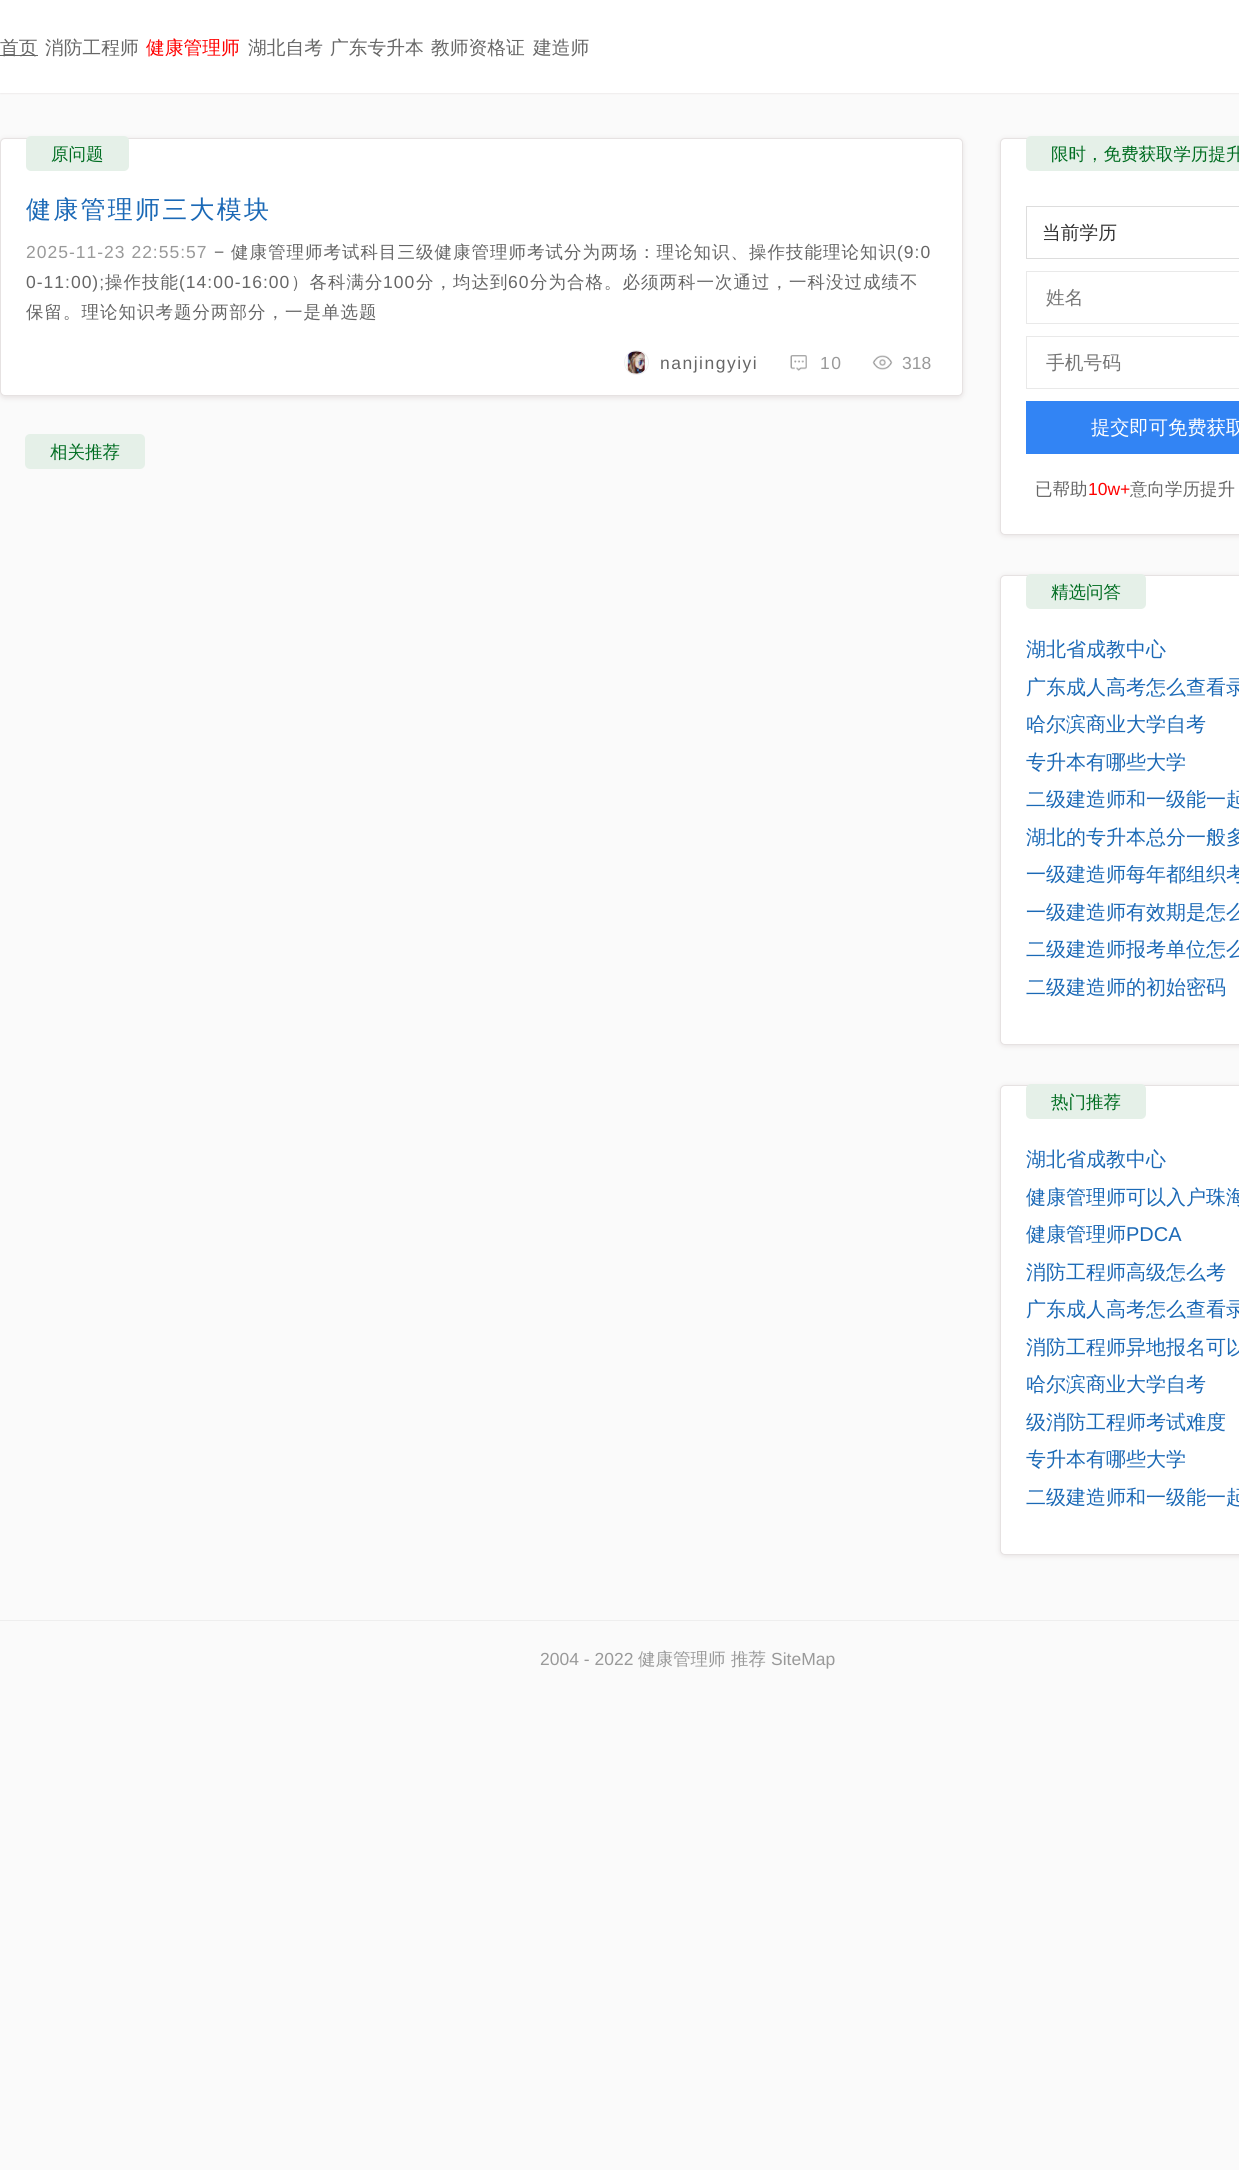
import math
import cairo

surface = cairo.ImageSurface(cairo.FORMAT_RGB24, 1239, 2170)
cr = cairo.Context(surface)
options = cairo.FontOptions()
options.set_hint_metrics(cairo.HINT_METRICS_OFF)
options.set_hint_style(cairo.HINT_STYLE_NONE)
cr.set_font_options(options)
cr.set_miter_limit(4)


def rgb(code):
    cr.set_source_rgb(*(v / 255 for v in bytes.fromhex(code[-6:])))


def tracked(x, y, s, letter, word):
    cr.move_to(x, y)
    for ch in s:
        cr.show_text(ch)
        cr.rel_move_to(letter + word * (ch == ' '), 0)


def rrect(x, y, w, h, r):
    cr.new_sub_path()
    for i, (u, v) in enumerate([(x + w - r, y + h - r), (x + r, y + h - r), (x + r, y + r), (x + w - r, y + r)]):
        cr.arc(u, v, r, i * math.pi / 2, (i + 1) * math.pi / 2)
    cr.close_path()


def soft_shadow(x, y, w, h, r, blur, alpha):
    cr.push_group_with_content(cairo.CONTENT_ALPHA)
    cr.set_operator(cairo.OPERATOR_SOURCE)
    for i in range(15, -16, -2):
        e = blur * i / 6
        if min(w, h) + 2 * e > 0:
            cr.set_source_rgba(0, 0, 0, alpha * math.erfc((i - 1) / 8.5) / 2)
            rrect(x - e, y - e, w + 2 * e, h + 2 * e, max(0, min(r + e + blur * .6, min(w, h) / 2 + e)))
            cr.fill()
    cr.mask(cr.pop_group())


def image(path, x, y, w, h):
    cr.save()
    cr.set_source_surface(cairo.ImageSurface.create_from_png(path), x, y)
    cr.rectangle(x, y, w, h)
    cr.fill()
    cr.restore()


rgb("#fafafa")
cr.paint()
rgb("#e6e2e2")
soft_shadow(0, 1, 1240, 93, 0, 0.5, 0.5)
rgb("#ffffff")
cr.rectangle(0, 0, 1239, 93)
cr.fill()
rgb("#666666")
cr.rectangle(0, 55, 38, 1)
cr.fill()
rgb("#e6e2e2")
soft_shadow(0, 139, 963, 259, 5, 2.5, 1)
rgb("#ffffff")
rrect(0.5, 138.5, 962, 257, 4.5)
cr.fill_preserve()
rgb("#e6e2e2")
cr.set_line_width(1)
cr.stroke()
rgb("#e5f0e8")
rrect(26, 136, 103, 35, 5)
cr.fill()
cr.arc(636.5, 362.5, 12, 0, 2 * math.pi)
rgb("#eeeeee")
cr.stroke()
image("img/1.png", 625, 351, 22, 23)
image("img/2.png", 790, 355, 17, 16)
image("img/3.png", 872, 355, 21, 15)
rgb("#e5f0e8")
rrect(25, 434, 120, 35, 5)
cr.fill()
rgb("#e6e2e2")
soft_shadow(1000, 139, 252, 397, 5, 2.5, 1)
rgb("#ffffff")
rrect(1000.5, 138.5, 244, 396, 4.5)
cr.fill_preserve()
rgb("#e6e2e2")
cr.stroke()
rgb("#e5f0e8")
rrect(1026, 136, 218, 35, 5)
cr.fill()
cr.rectangle(1026.5, 206.5, 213, 52)
rgb("#dddddd")
cr.stroke()
cr.rectangle(1026.5, 271.5, 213, 52)
rgb("#e9e9e9")
cr.stroke()
cr.rectangle(1026.5, 336.5, 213, 52)
cr.stroke()
rgb("#3284f4")
cr.rectangle(1026, 401, 213, 53)
cr.fill()
rgb("#e6e2e2")
soft_shadow(1000, 576, 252, 470, 5, 2.5, 1)
rgb("#ffffff")
rrect(1000.5, 575.5, 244, 469, 4.5)
cr.fill_preserve()
rgb("#e6e2e2")
cr.stroke()
rgb("#e5f0e8")
rrect(1026, 574, 120, 35, 5)
cr.fill()
rgb("#e6e2e2")
soft_shadow(1000, 1086, 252, 470, 5, 2.5, 1)
rgb("#ffffff")
rrect(1000.5, 1085.5, 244, 469, 4.5)
cr.fill_preserve()
rgb("#e6e2e2")
cr.stroke()
rgb("#e5f0e8")
rrect(1026, 1084, 120, 35, 5)
cr.fill()
rgb("#eeeeee")
cr.rectangle(0, 1620, 1239, 1)
cr.fill()
cr.select_font_face("WenQuanYi Zen Hei Medium")
cr.set_font_size(18.75)
rgb("#666666")
cr.move_to(0, 54)
cr.show_text("首页")
cr.move_to(45, 54)
cr.show_text("消防工程师")
rgb("#ff0000")
cr.move_to(146, 54)
cr.show_text("健康管理师")
rgb("#666666")
for x, y, s in [
    (248, 54, "湖北自考"),
    (330, 54, "广东专升本"),
    (431, 54, "教师资格证"),
    (533, 54, "建造师"),
]:
    cr.move_to(x, y)
    cr.show_text(s)
cr.set_font_size(17.5)
rgb("#006d21")
cr.move_to(51, 160)
cr.show_text("原问题")
cr.set_font_size(25)
rgb("#1b69b6")
tracked(26, 218, "健康管理师三大模块", 2.25, 0)
cr.select_font_face("Liberation Sans")
cr.set_font_size(17.5)
rgb("#999999")
tracked(26, 258, "2025-11-23 22:55:57", 1, 0)
rgb("#666666")
tracked(214, 258, "−", 1, 0)
cr.select_font_face("WenQuanYi Zen Hei Medium")
tracked(231, 258, "健康管理师考试科目三级健康管理师考试分为两场：理论知识、操作技能理论知识", 1, 0)
cr.select_font_face("Liberation Sans")
tracked(897, 258, "(9:0", 1, 0)
tracked(26, 288, "0-11:00);", 1, 0)
cr.select_font_face("WenQuanYi Zen Hei Medium")
tracked(105, 288, "操作技能", 1, 0)
cr.select_font_face("Liberation Sans")
tracked(179, 288, "(14:00-16:00", 1, 0)
cr.select_font_face("WenQuanYi Zen Hei Medium")
tracked(291, 288, "）各科满分", 1, 0)
cr.select_font_face("Liberation Sans")
tracked(383, 288, "100", 1, 0)
cr.select_font_face("WenQuanYi Zen Hei Medium")
tracked(416, 288, "分，均达到", 1, 0)
cr.select_font_face("Liberation Sans")
tracked(508, 288, "60", 1, 0)
cr.select_font_face("WenQuanYi Zen Hei Medium")
tracked(530, 288, "分为合格。必须两科一次通过，一科没过成绩不", 1, 0)
tracked(26, 318, "保留。理论知识考题分两部分，一是单选题", 1, 0)
cr.select_font_face("Liberation Sans")
tracked(660, 369, "nanjingyiyi", 1.5, 0)
rgb("#999999")
tracked(820, 369, "10", 1.5, 0)
cr.move_to(902, 369)
cr.show_text("318")
cr.select_font_face("WenQuanYi Zen Hei Medium")
rgb("#006d21")
cr.move_to(50, 458)
cr.show_text("相关推荐")
cr.move_to(1051, 160)
cr.show_text("限时，免费获取学历提升")
cr.set_font_size(18.75)
rgb("#333333")
cr.move_to(1042, 239)
cr.show_text("当前学历")
rgb("#757575")
cr.move_to(1046, 304)
cr.show_text("姓名")
cr.move_to(1046, 369)
cr.show_text("手机号码")
cr.set_font_size(19.25)
rgb("#ffffff")
cr.move_to(1091, 434)
cr.show_text("提交即可免费获取")
cr.set_font_size(17.5)
rgb("#666666")
cr.move_to(1035, 495)
cr.show_text("已帮助")
cr.select_font_face("Liberation Sans")
rgb("#ff0000")
cr.move_to(1088, 495)
cr.show_text("10w+")
cr.select_font_face("WenQuanYi Zen Hei Medium")
rgb("#666666")
cr.move_to(1130, 495)
cr.show_text("意向学历提升")
rgb("#006d21")
cr.move_to(1051, 598)
cr.show_text("精选问答")
cr.set_font_size(20)
rgb("#1b69b6")
for x, y, s in [
    (1026, 656, "湖北省成教中心"),
    (1026, 694, "广东成人高考怎么查看录"),
    (1026, 731, "哈尔滨商业大学自考"),
    (1026, 769, "专升本有哪些大学"),
    (1026, 806, "二级建造师和一级能一起"),
    (1026, 844, "湖北的专升本总分一般多"),
    (1026, 881, "一级建造师每年都组织考"),
    (1026, 919, "一级建造师有效期是怎么"),
    (1026, 956, "二级建造师报考单位怎么"),
    (1026, 994, "二级建造师的初始密码"),
]:
    cr.move_to(x, y)
    cr.show_text(s)
cr.set_font_size(17.5)
rgb("#006d21")
cr.move_to(1051, 1108)
cr.show_text("热门推荐")
cr.set_font_size(20)
rgb("#1b69b6")
for x, y, s in [
    (1026, 1166, "湖北省成教中心"),
    (1026, 1204, "健康管理师可以入户珠海"),
    (1026, 1241, "健康管理师"),
]:
    cr.move_to(x, y)
    cr.show_text(s)
cr.select_font_face("Liberation Sans")
cr.move_to(1126, 1241)
cr.show_text("PDCA")
cr.select_font_face("WenQuanYi Zen Hei Medium")
for x, y, s in [
    (1026, 1279, "消防工程师高级怎么考"),
    (1026, 1316, "广东成人高考怎么查看录"),
    (1026, 1354, "消防工程师异地报名可以"),
    (1026, 1391, "哈尔滨商业大学自考"),
    (1026, 1429, "级消防工程师考试难度"),
    (1026, 1466, "专升本有哪些大学"),
    (1026, 1504, "二级建造师和一级能一起"),
]:
    cr.move_to(x, y)
    cr.show_text(s)
cr.select_font_face("Liberation Sans")
cr.set_font_size(17.5)
rgb("#999999")
cr.move_to(540, 1665)
cr.show_text("2004 - 2022")
cr.select_font_face("WenQuanYi Zen Hei Medium")
cr.move_to(638, 1665)
cr.show_text("健康管理师")
cr.move_to(731, 1665)
cr.show_text("推荐")
cr.select_font_face("Liberation Sans")
cr.move_to(771, 1665)
cr.show_text("SiteMap")
surface.write_to_png("page.png")
